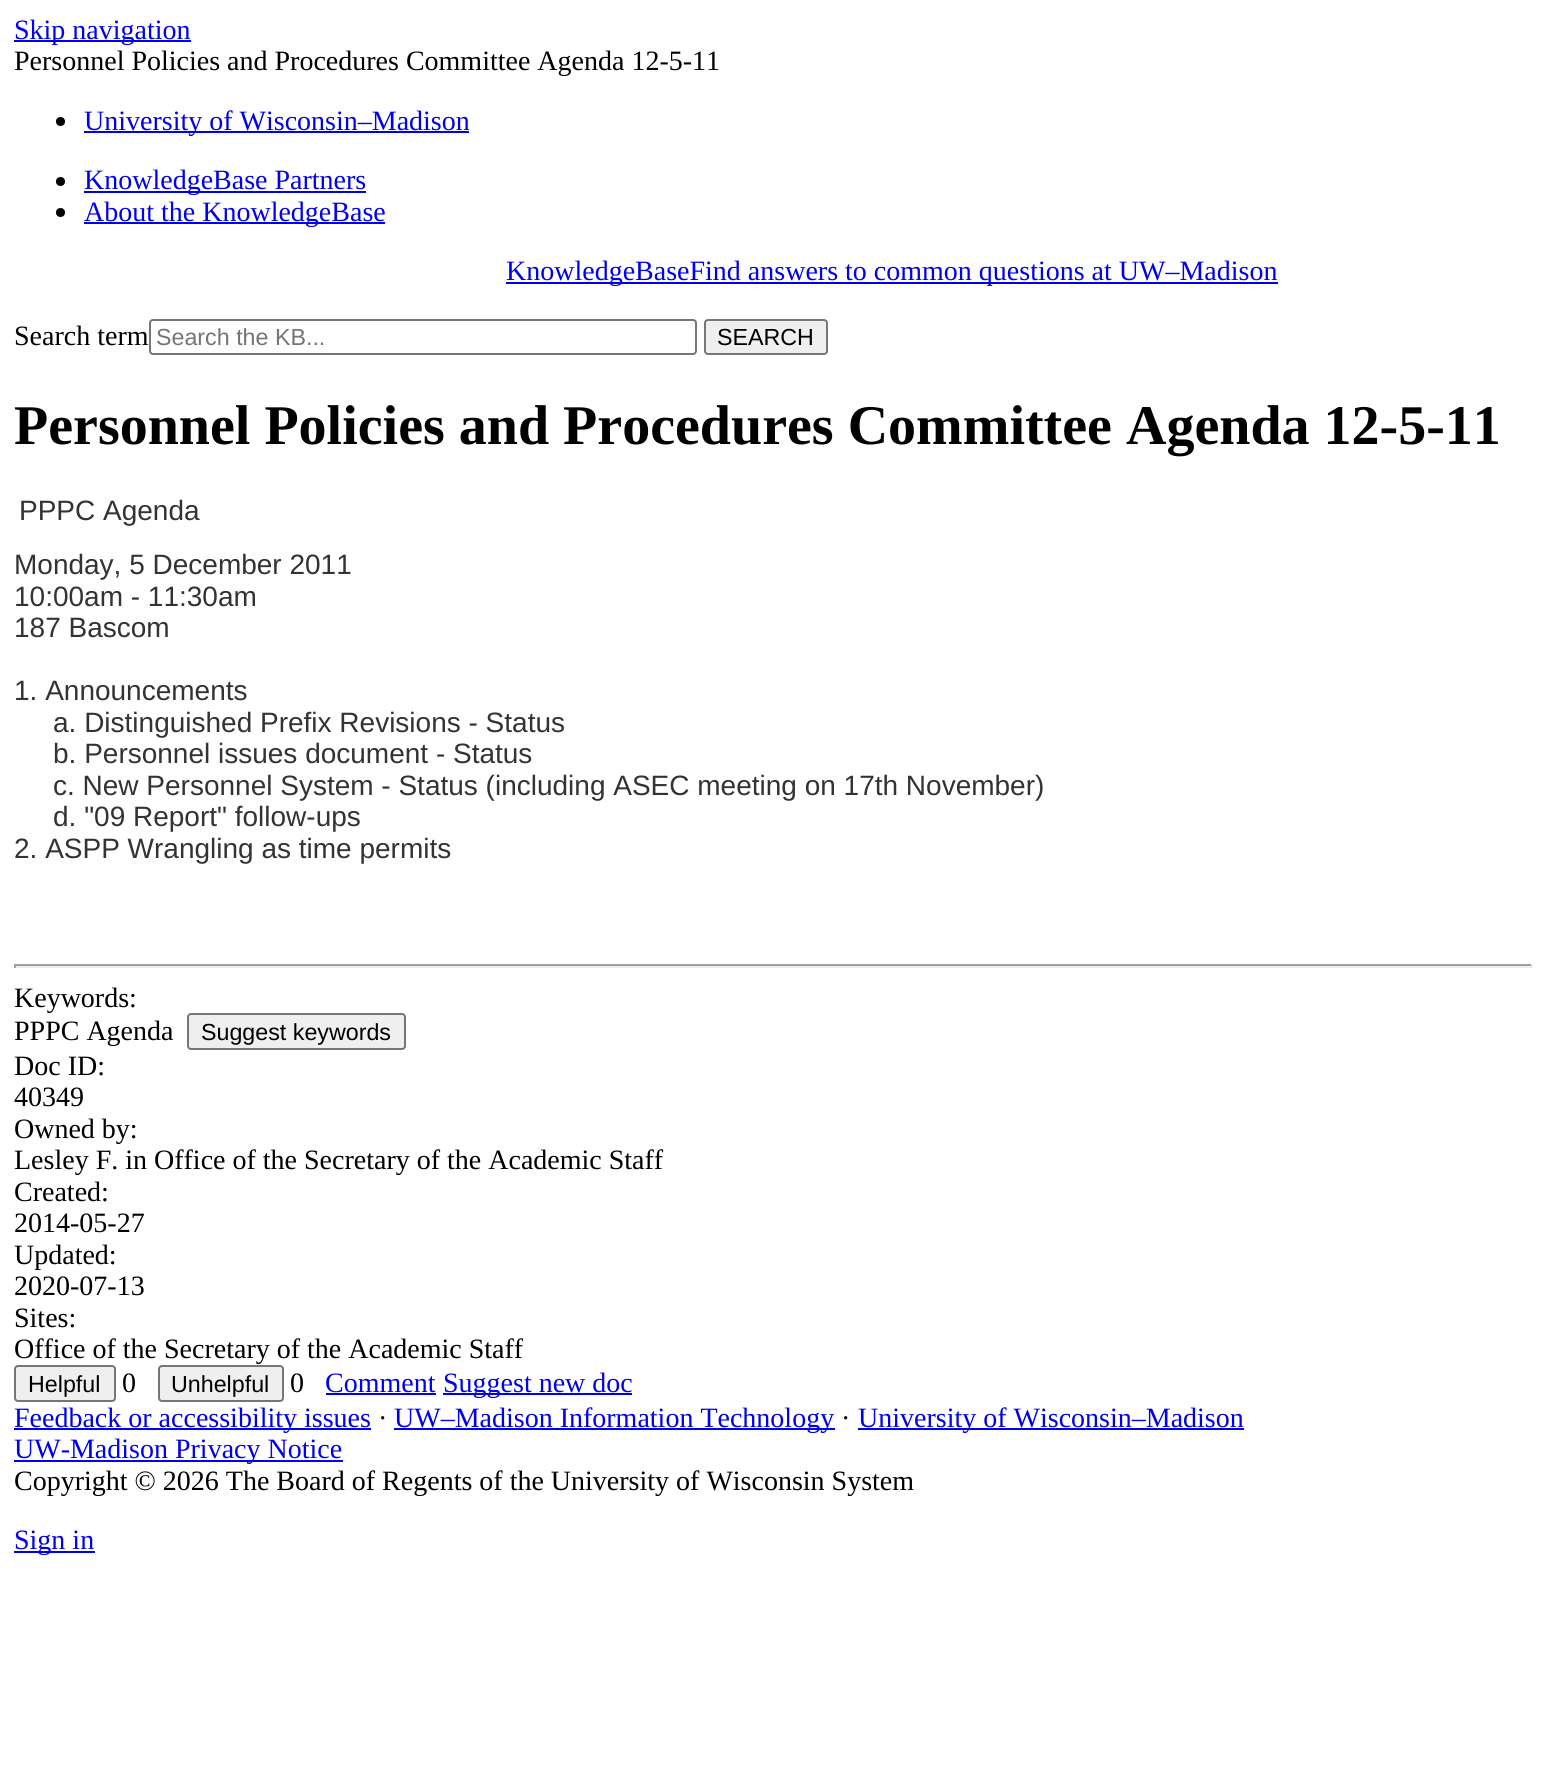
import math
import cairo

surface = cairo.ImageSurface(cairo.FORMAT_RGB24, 1546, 1775)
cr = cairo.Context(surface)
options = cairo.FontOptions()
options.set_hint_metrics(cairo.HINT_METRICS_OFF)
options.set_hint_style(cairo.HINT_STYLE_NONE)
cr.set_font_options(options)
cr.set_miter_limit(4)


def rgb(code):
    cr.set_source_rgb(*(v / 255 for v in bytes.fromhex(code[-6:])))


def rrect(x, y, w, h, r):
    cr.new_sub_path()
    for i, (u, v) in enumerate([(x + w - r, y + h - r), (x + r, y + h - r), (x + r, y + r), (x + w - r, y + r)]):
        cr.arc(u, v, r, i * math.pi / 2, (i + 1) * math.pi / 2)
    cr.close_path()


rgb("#ffffff")
cr.paint()
rgb("#0000ee")
cr.rectangle(14, 40, 177, 2)
cr.fill()
rgb("#000000")
cr.arc(60.5, 121.5, 4.5, 0, 2 * math.pi)
cr.fill()
rgb("#0000ee")
cr.rectangle(84, 131, 385, 2)
cr.fill()
rgb("#000000")
cr.arc(60.5, 181.5, 4.5, 0, 2 * math.pi)
cr.fill()
rgb("#0000ee")
cr.rectangle(84, 191, 282, 2)
cr.fill()
rgb("#000000")
cr.arc(60.5, 212.5, 4.5, 0, 2 * math.pi)
cr.fill()
rgb("#0000ee")
cr.rectangle(84, 222, 301, 2)
cr.fill()
cr.rectangle(506, 282, 772, 2)
cr.fill()
rrect(150, 320, 546, 34, 3)
rgb("#767676")
cr.stroke()
rgb("#efefef")
rrect(705, 320, 122, 34, 3)
cr.fill_preserve()
rgb("#767676")
cr.stroke()
for x, y, w, h, color in [
    (14, 964, 1519, 2, "#9f9f9f"),
    (1531, 964, 2, 4, "#eeeeee"),
    (14, 966, 1519, 2, "#eeeeee"),
    (14, 964, 2, 4, "#9f9f9f"),
]:
    rgb(color)
    cr.rectangle(x, y, w, h)
    cr.fill()
rgb("#efefef")
rrect(188, 1014, 217, 35, 3)
cr.fill_preserve()
rgb("#767676")
cr.stroke()
rgb("#efefef")
rrect(15, 1366, 100, 35, 3)
cr.fill_preserve()
rgb("#767676")
cr.stroke()
rgb("#efefef")
rrect(159, 1366, 124, 35, 3)
cr.fill_preserve()
rgb("#767676")
cr.stroke()
for x, y, w, h, color in [
    (326, 1393, 110, 2, "#0000ee"),
    (443, 1393, 189, 2, "#0000ee"),
    (14, 1428, 357, 2, "#0000ee"),
    (394, 1428, 441, 2, "#0000ee"),
    (858, 1428, 386, 2, "#0000ee"),
    (14, 1460, 329, 2, "#0000ee"),
    (14, 1551, 81, 2, "#0000ee"),
]:
    rgb(color)
    cr.rectangle(x, y, w, h)
    cr.fill()
cr.select_font_face("Liberation Serif")
cr.set_font_size(28)
cr.move_to(14, 39)
cr.show_text("Skip navigation")
rgb("#000000")
cr.move_to(14, 70)
cr.show_text("Personnel Policies and Procedures Committee Agenda 12-5-11")
rgb("#0000ee")
for x, y, s in [
    (84, 130, "University of Wisconsin–Madison"),
    (84, 189, "KnowledgeBase Partners"),
    (84, 221, "About the KnowledgeBase"),
    (506, 280, "KnowledgeBaseFind answers to common questions at UW–Madison"),
]:
    cr.move_to(x, y)
    cr.show_text(s)
rgb("#000000")
cr.move_to(14, 345)
cr.show_text("Search term")
cr.select_font_face("Liberation Sans")
cr.set_font_size(23.25)
rgb("#757575")
cr.move_to(156, 345)
cr.show_text("Search the KB...")
rgb("#000000")
cr.move_to(717, 345)
cr.show_text("SEARCH")
cr.select_font_face("Liberation Serif", cairo.FONT_SLANT_NORMAL, cairo.FONT_WEIGHT_BOLD)
cr.set_font_size(56)
cr.move_to(14, 444)
cr.show_text("Personnel Policies and Procedures Committee Agenda 12-5-11")
cr.select_font_face("Liberation Sans")
cr.set_font_size(28)
rgb("#333333")
for x, y, s in [
    (19, 520, "PPPC Agenda"),
    (14, 574, "Monday, 5 December 2011"),
    (14, 606, "10:00am - 11:30am"),
    (14, 637, "187 Bascom"),
    (14, 700, "1. Announcements"),
    (53, 732, "a. Distinguished Prefix Revisions - Status"),
    (53, 763, "b. Personnel issues document - Status"),
    (53, 795, "c. New Personnel System - Status (including ASEC meeting on 17th November)"),
    (53, 826, "d. \"09 Report\" follow-ups"),
    (14, 858, "2. ASPP Wrangling as time permits"),
]:
    cr.move_to(x, y)
    cr.show_text(s)
cr.select_font_face("Liberation Serif")
rgb("#000000")
cr.move_to(14, 1007)
cr.show_text("Keywords:")
cr.move_to(14, 1040)
cr.show_text("PPPC Agenda")
cr.select_font_face("Liberation Sans")
cr.set_font_size(23.25)
cr.move_to(201, 1040)
cr.show_text("Suggest keywords")
cr.select_font_face("Liberation Serif")
cr.set_font_size(28)
for x, y, s in [
    (14, 1075, "Doc ID:"),
    (14, 1106, "40349"),
    (14, 1138, "Owned by:"),
    (14, 1169, "Lesley F. in Office of the Secretary of the Academic Staff"),
    (14, 1201, "Created:"),
    (14, 1232, "2014-05-27"),
    (14, 1264, "Updated:"),
    (14, 1295, "2020-07-13"),
    (14, 1327, "Sites:"),
    (14, 1358, "Office of the Secretary of the Academic Staff"),
]:
    cr.move_to(x, y)
    cr.show_text(s)
cr.select_font_face("Liberation Sans")
cr.set_font_size(23.25)
cr.move_to(28, 1392)
cr.show_text("Helpful")
cr.select_font_face("Liberation Serif")
cr.set_font_size(28)
cr.move_to(122, 1392)
cr.show_text("0")
cr.select_font_face("Liberation Sans")
cr.set_font_size(23.25)
cr.move_to(171, 1392)
cr.show_text("Unhelpful")
cr.select_font_face("Liberation Serif")
cr.set_font_size(28)
cr.move_to(290, 1392)
cr.show_text("0")
rgb("#0000ee")
for x, y, s in [
    (325, 1392, "Comment"),
    (443, 1392, "Suggest new doc"),
    (14, 1427, "Feedback or accessibility issues"),
]:
    cr.move_to(x, y)
    cr.show_text(s)
rgb("#000000")
cr.move_to(378, 1427)
cr.show_text("·")
rgb("#0000ee")
cr.move_to(394, 1427)
cr.show_text("UW–Madison Information Technology")
rgb("#000000")
cr.move_to(841, 1427)
cr.show_text("·")
rgb("#0000ee")
cr.move_to(858, 1427)
cr.show_text("University of Wisconsin–Madison")
cr.move_to(14, 1458)
cr.show_text("UW-Madison Privacy Notice")
rgb("#000000")
cr.move_to(14, 1490)
cr.show_text("Copyright © 2026 The Board of Regents of the University of Wisconsin System")
rgb("#0000ee")
cr.move_to(14, 1549)
cr.show_text("Sign in")
surface.write_to_png("page.png")
